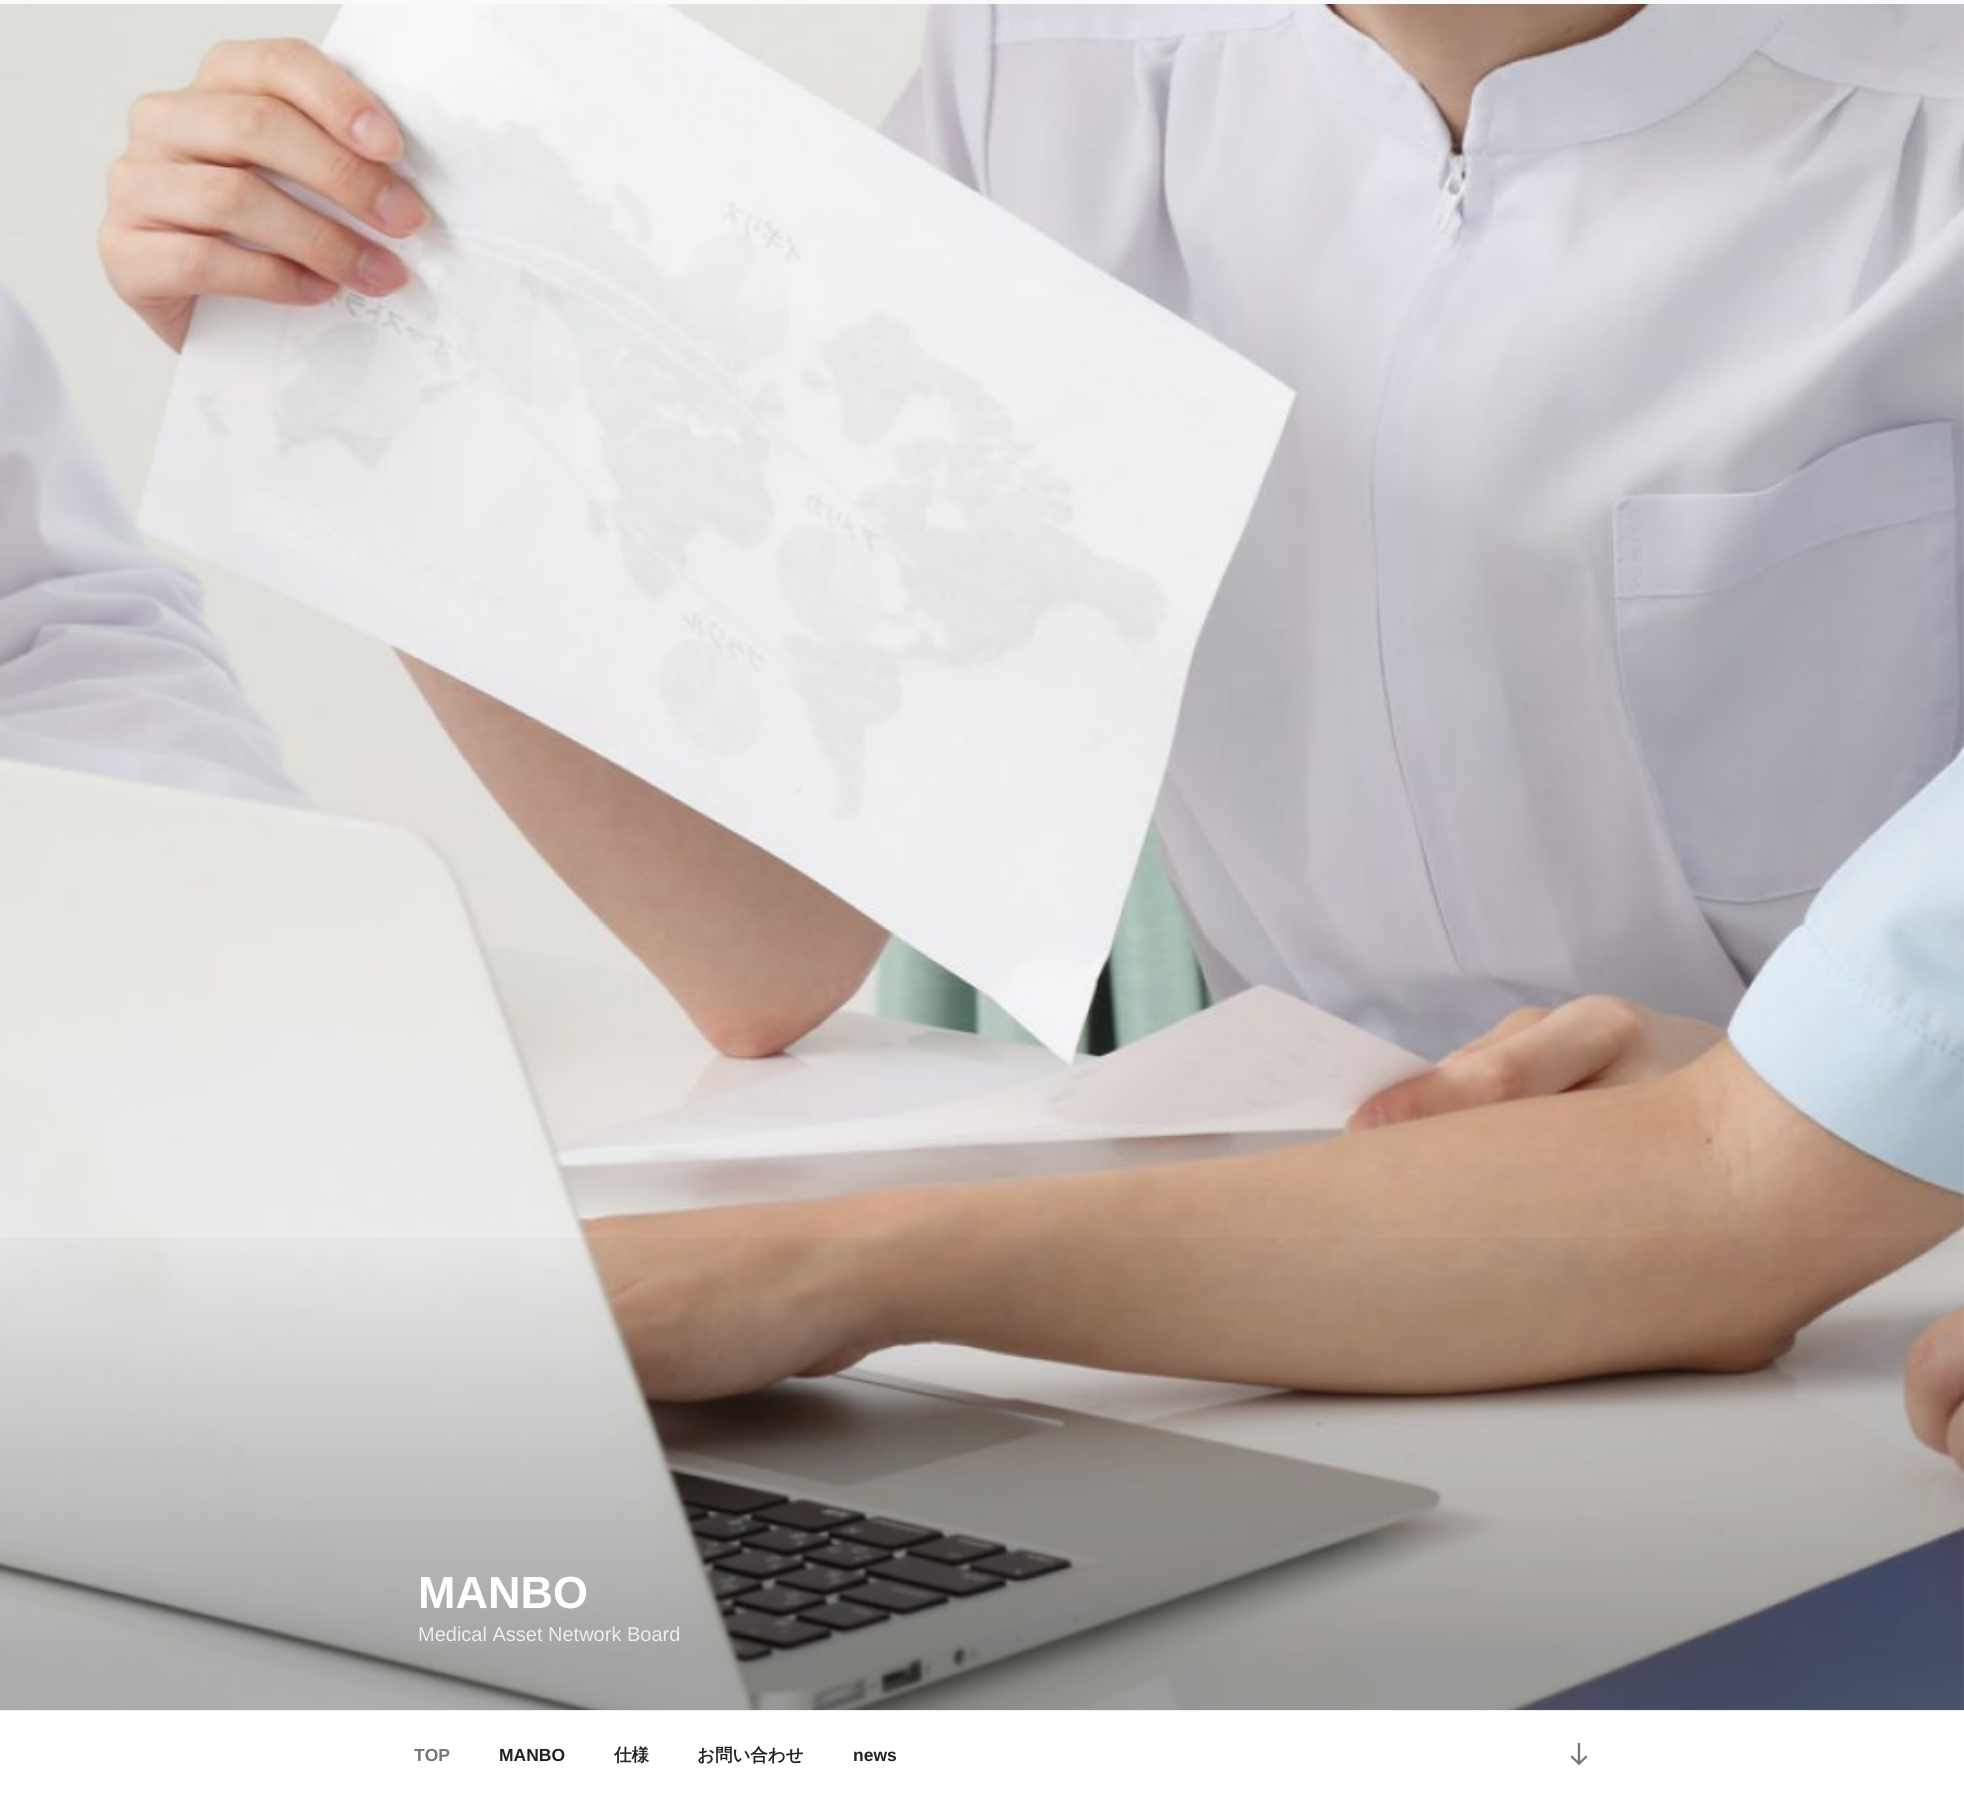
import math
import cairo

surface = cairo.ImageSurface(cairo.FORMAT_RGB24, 1964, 1799)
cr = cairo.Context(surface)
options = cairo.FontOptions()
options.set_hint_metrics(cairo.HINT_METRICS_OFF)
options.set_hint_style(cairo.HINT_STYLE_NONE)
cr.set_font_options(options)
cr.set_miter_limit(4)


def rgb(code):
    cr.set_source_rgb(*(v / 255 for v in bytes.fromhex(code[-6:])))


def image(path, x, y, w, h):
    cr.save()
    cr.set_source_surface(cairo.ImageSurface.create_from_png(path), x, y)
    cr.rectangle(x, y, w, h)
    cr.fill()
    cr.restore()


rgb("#fafafa")
cr.paint()
image("img/1.png", 0, 4, 1964, 1706)
gradient = cairo.LinearGradient(983, 1206, 983, 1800)
gradient.add_color_stop_rgba(0, 0, 0, 0, 0)
gradient.add_color_stop_rgba(0.75, 0, 0, 0, 0.3)
gradient.add_color_stop_rgba(1, 0, 0, 0, 0.3)
cr.set_source(gradient)
cr.rectangle(0, 1238, 1964, 472)
cr.fill()
rgb("#ffffff")
cr.rectangle(0, 1711, 1964, 88)
cr.fill()
rgb("#eeeeee")
cr.rectangle(0, 1710, 1964, 1)
cr.fill()
image("img/2.png", 1570, 1743, 18, 22)
cr.select_font_face("Liberation Sans", cairo.FONT_SLANT_NORMAL, cairo.FONT_WEIGHT_BOLD)
cr.set_font_size(45)
rgb("#ffffff")
cr.move_to(418, 1608)
cr.show_text("MANBO")
cr.select_font_face("Liberation Sans")
cr.set_font_size(20)
rgb("#ededed")
cr.move_to(418, 1641)
cr.show_text("Medical Asset Network Board")
cr.select_font_face("Liberation Sans", cairo.FONT_SLANT_NORMAL, cairo.FONT_WEIGHT_BOLD)
cr.set_font_size(17.5)
rgb("#767676")
cr.move_to(414, 1761)
cr.show_text("TOP")
rgb("#222222")
cr.move_to(499, 1761)
cr.show_text("MANBO")
cr.select_font_face("WenQuanYi Zen Hei", cairo.FONT_SLANT_NORMAL, cairo.FONT_WEIGHT_BOLD)
cr.move_to(614, 1761)
cr.show_text("仕様")
cr.move_to(697, 1761)
cr.show_text("お問い合わせ")
cr.select_font_face("Liberation Sans", cairo.FONT_SLANT_NORMAL, cairo.FONT_WEIGHT_BOLD)
cr.move_to(853, 1761)
cr.show_text("news")
surface.write_to_png("page.png")
